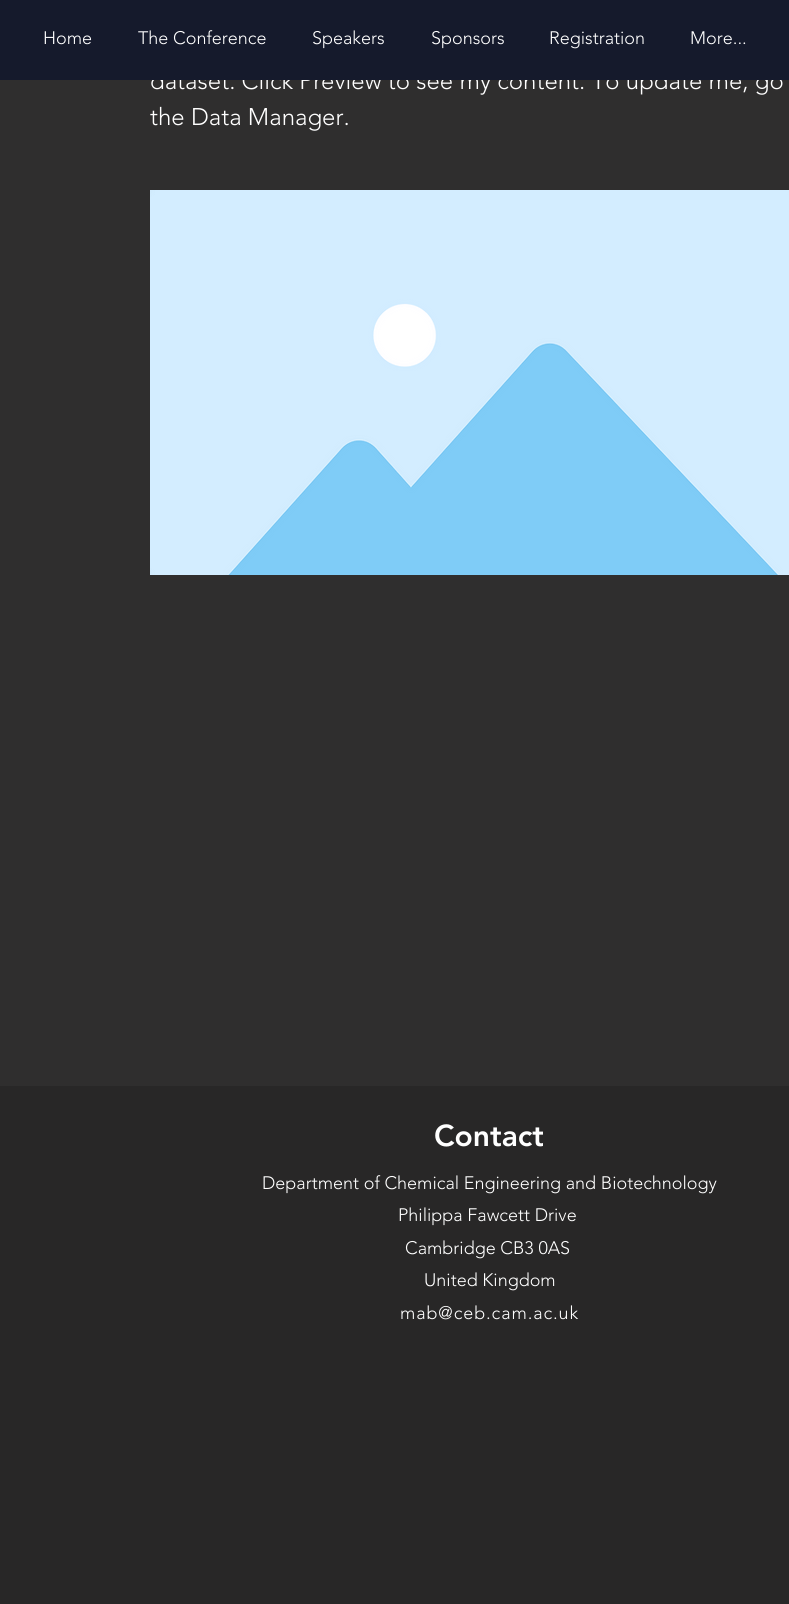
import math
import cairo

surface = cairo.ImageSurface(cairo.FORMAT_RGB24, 789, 1604)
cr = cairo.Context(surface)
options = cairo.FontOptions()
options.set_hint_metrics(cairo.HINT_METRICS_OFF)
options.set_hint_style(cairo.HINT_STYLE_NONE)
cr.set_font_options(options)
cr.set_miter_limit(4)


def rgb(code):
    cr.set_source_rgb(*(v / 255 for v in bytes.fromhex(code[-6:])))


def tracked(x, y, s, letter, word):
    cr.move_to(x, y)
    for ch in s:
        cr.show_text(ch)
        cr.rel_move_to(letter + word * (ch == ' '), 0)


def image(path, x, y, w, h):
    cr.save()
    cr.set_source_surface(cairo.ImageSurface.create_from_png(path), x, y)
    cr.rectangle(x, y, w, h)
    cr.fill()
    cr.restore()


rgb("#2f2e2e")
cr.paint()
image("img/1.png", 150, 190, 639, 385)
rgb("#282727")
cr.rectangle(0, 1086, 789, 518)
cr.fill()
cr.select_font_face("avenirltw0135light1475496 Light")
cr.set_font_size(24)
rgb("#ffffff")
cr.move_to(150, 89)
cr.show_text("dataset. Click Preview to see my content. To update me, go")
rgb("#151a2c")
cr.rectangle(0, 0, 789, 80)
cr.fill()
cr.set_font_size(18)
rgb("#ffffff")
for x, y, s in [
    (690, 44, "More..."),
    (549, 44, "Registration"),
    (431, 44, "Sponsors"),
    (312, 44, "Speakers"),
    (138, 44, "The Conference"),
    (43, 44, "Home"),
]:
    cr.move_to(x, y)
    cr.show_text(s)
cr.set_font_size(24)
cr.move_to(150, 125)
cr.show_text("the Data Manager.")
cr.select_font_face("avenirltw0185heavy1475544 Black")
cr.set_font_size(30)
cr.move_to(434, 1146)
cr.show_text("Contact")
cr.select_font_face("avenirltw0135light1475496 Light")
cr.set_font_size(18)
for x, y, s in [
    (262, 1189, "Department of Chemical Engineering and Biotechnology"),
    (398, 1221, "Philippa Fawcett Drive"),
    (405, 1254, "Cambridge CB3 0AS"),
    (424, 1286, "United Kingdom"),
]:
    cr.move_to(x, y)
    cr.show_text(s)
tracked(400, 1319, "mab@ceb.cam.ac.uk", 0.9, 0)
surface.write_to_png("page.png")
